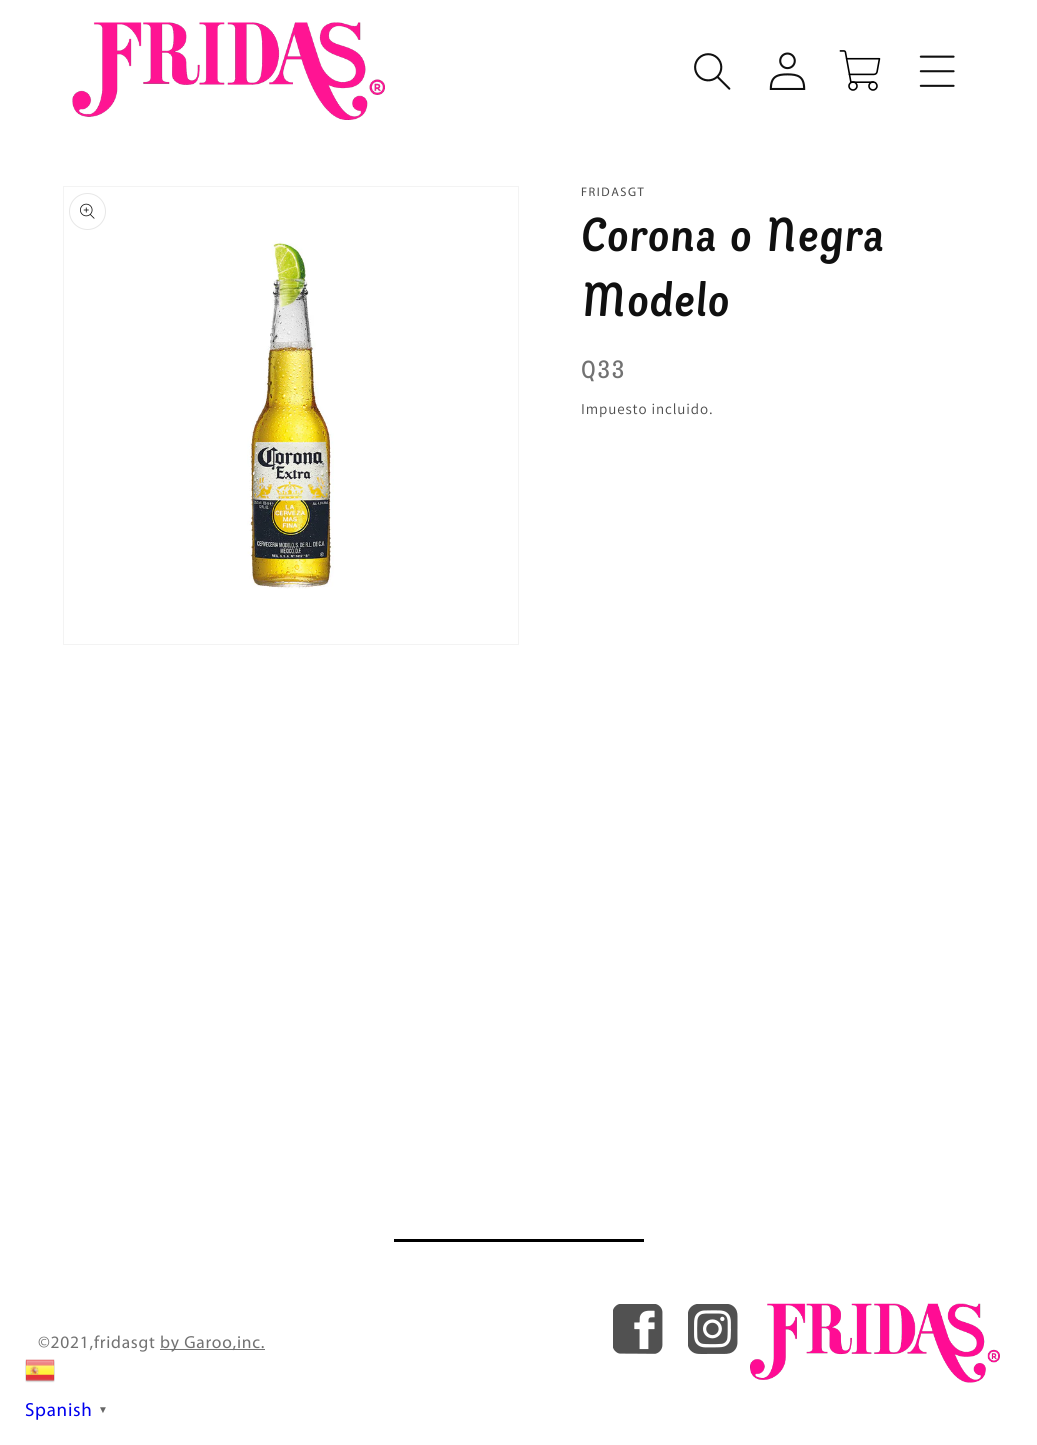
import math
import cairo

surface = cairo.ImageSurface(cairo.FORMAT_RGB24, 1037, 1445)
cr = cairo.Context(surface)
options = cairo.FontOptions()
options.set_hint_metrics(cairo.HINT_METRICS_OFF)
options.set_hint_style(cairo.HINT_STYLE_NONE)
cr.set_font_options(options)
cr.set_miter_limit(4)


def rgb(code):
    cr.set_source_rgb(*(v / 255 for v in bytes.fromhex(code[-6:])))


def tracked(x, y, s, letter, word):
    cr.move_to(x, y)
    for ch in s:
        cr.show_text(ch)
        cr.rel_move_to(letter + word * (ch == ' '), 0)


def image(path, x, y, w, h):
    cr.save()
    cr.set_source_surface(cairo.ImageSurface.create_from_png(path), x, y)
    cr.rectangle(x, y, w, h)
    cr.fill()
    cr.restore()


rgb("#ffffff")
cr.paint()
image("img/1.png", 72, 22, 313, 98)
image("img/2.png", 694, 53, 37, 37)
image("img/3.png", 769, 52, 37, 38)
image("img/4.png", 839, 50, 42, 41)
image("img/5.png", 919, 55, 36, 32)
cr.rectangle(63.5, 186.5, 455, 458)
rgb("#f3f3f3")
cr.set_line_width(1)
cr.stroke()
image("img/6.png", 247, 240, 87, 349)
cr.arc(87.5, 211.5, 18, 0, 2 * math.pi)
rgb("#e7e7e7")
cr.stroke()
image("img/7.png", 80, 203, 15, 16)
rgb("#000000")
cr.rectangle(394, 1239, 250, 3)
cr.fill()
rgb("#727272")
cr.rectangle(160, 1349, 105, 1)
cr.fill()
image("img/8.png", 613, 1304, 50, 50)
image("img/9.png", 688, 1304, 50, 50)
image("img/10.png", 750, 1303, 250, 80)
image("img/11.png", 25, 1359, 30, 24)
cr.select_font_face("Myriad")
cr.set_font_size(12.5)
rgb("#4c4c4c")
tracked(581, 196, "FRIDASGT", 1.5, 0)
cr.select_font_face("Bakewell", cairo.FONT_SLANT_NORMAL, cairo.FONT_WEIGHT_BOLD)
cr.set_font_size(50)
rgb("#101010")
tracked(581, 251, "Corona o Negra", 0.75, 0)
tracked(581, 316, "Modelo", 0.75, 0)
cr.select_font_face("Bakewell Medium")
cr.set_font_size(26)
rgb("#727272")
tracked(581, 378, "Q33", 1.5, 0)
cr.select_font_face("Assistant")
cr.set_font_size(15)
rgb("#4c4c4c")
tracked(581, 414, "Impuesto incluido.", 0.9, 0)
cr.select_font_face("Myriad")
cr.set_font_size(17.5)
rgb("#727272")
tracked(38, 1348, "©2021,fridasgt", 0.75, 0)
tracked(160, 1348, "by Garoo,inc.", 0.75, 0)
cr.set_font_size(19)
rgb("#0000ee")
tracked(25, 1416, "Spanish", 0.75, 0)
cr.select_font_face("Liberation Serif", cairo.FONT_SLANT_NORMAL, cairo.FONT_WEIGHT_BOLD)
cr.set_font_size(10)
rgb("#666666")
tracked(98, 1413, "▼", 0.75, 0)
surface.write_to_png("page.png")
